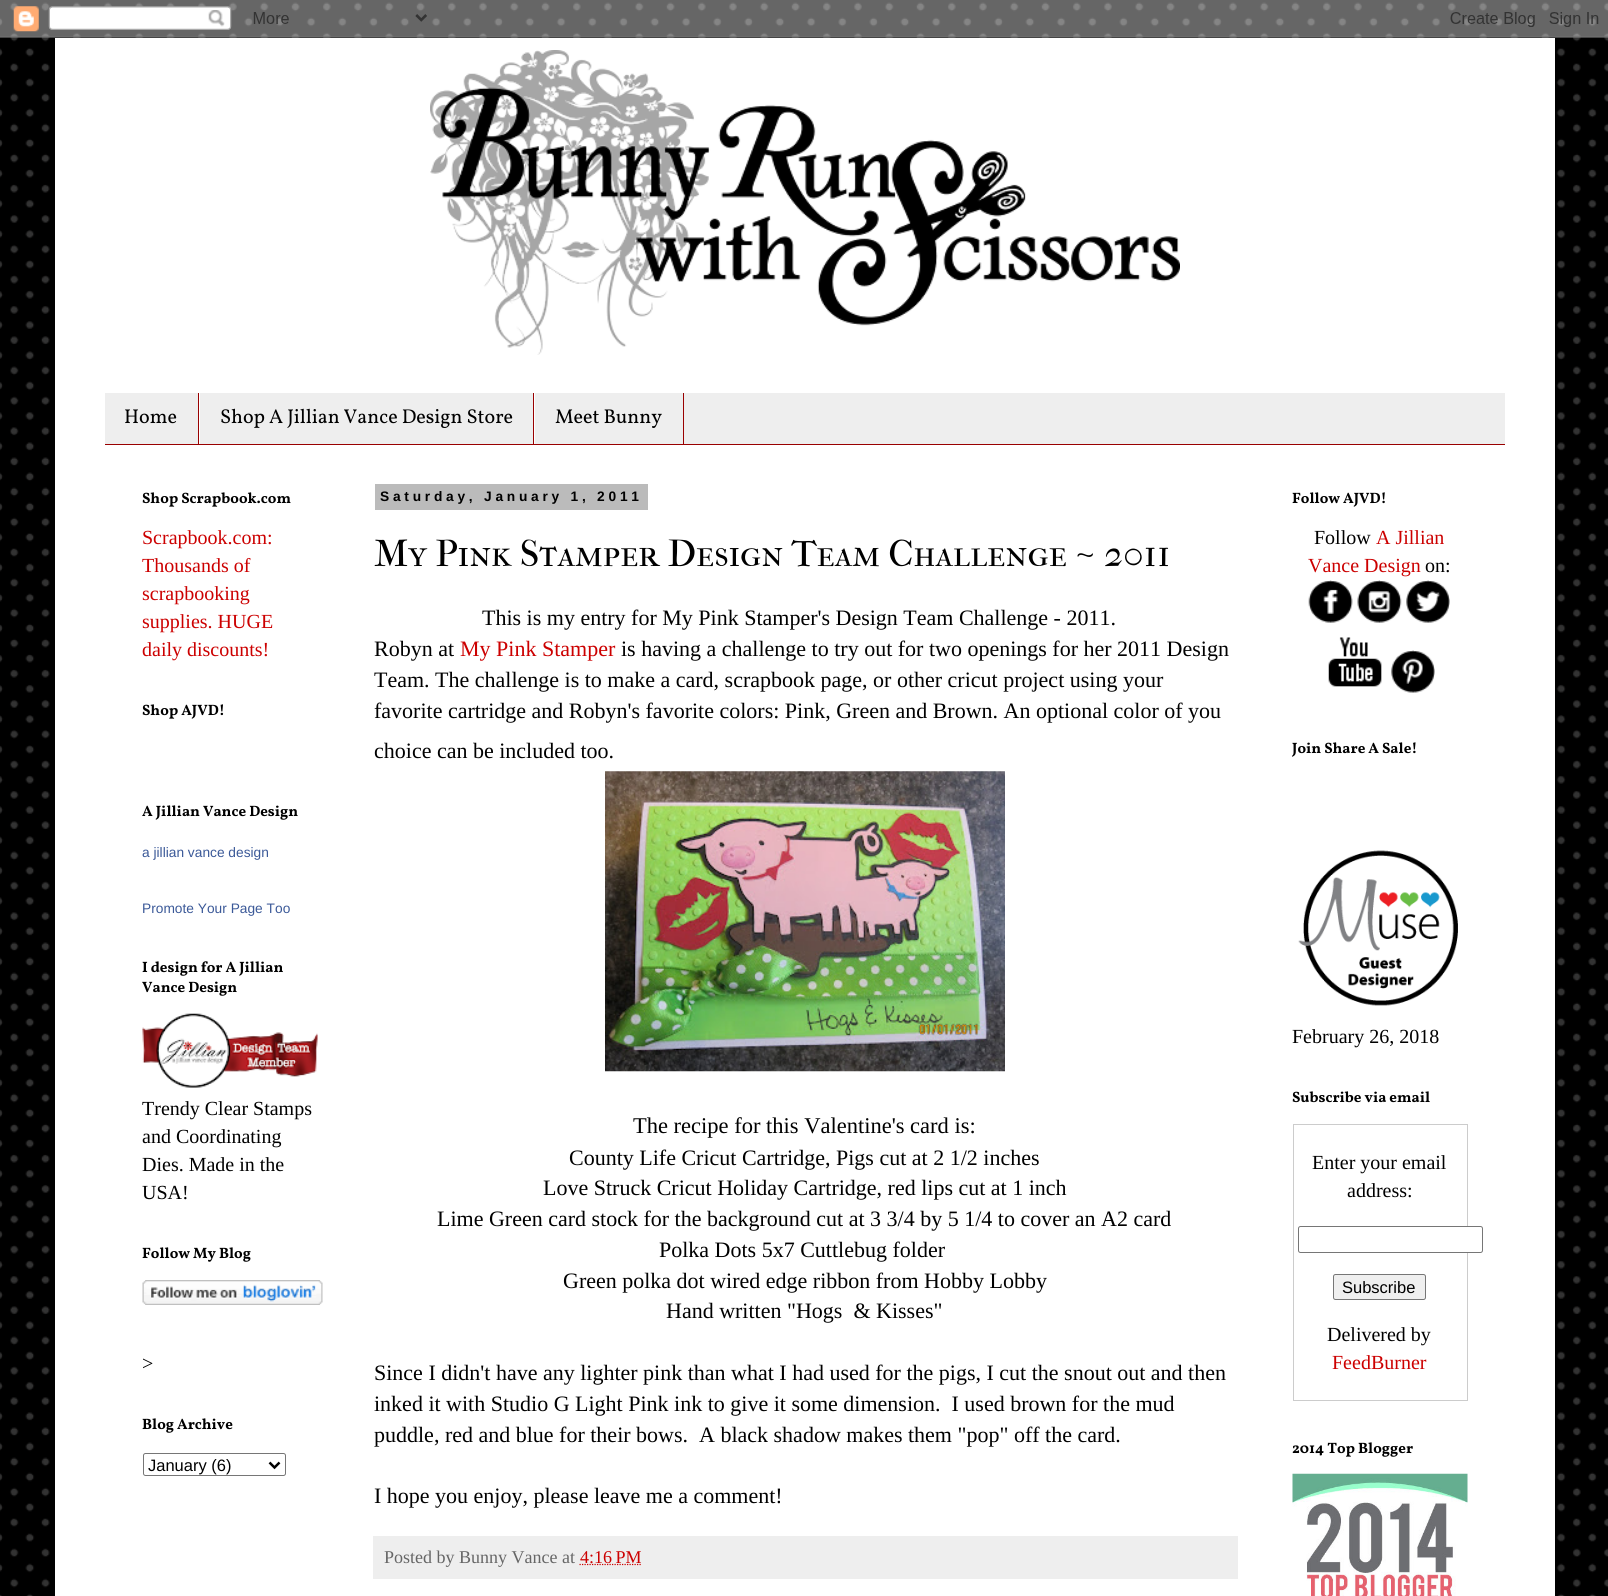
import math
import cairo

surface = cairo.ImageSurface(cairo.FORMAT_RGB24, 1608, 1596)
cr = cairo.Context(surface)
options = cairo.FontOptions()
options.set_hint_metrics(cairo.HINT_METRICS_OFF)
options.set_hint_style(cairo.HINT_STYLE_NONE)
cr.set_font_options(options)
cr.set_miter_limit(4)


def rgb(code):
    cr.set_source_rgb(*(v / 255 for v in bytes.fromhex(code[-6:])))


def tracked(x, y, s, letter, word):
    cr.move_to(x, y)
    for ch in s:
        cr.show_text(ch)
        cr.rel_move_to(letter + word * (ch == ' '), 0)


def rrect(x, y, w, h, r):
    cr.new_sub_path()
    for i, (u, v) in enumerate([(x + w - r, y + h - r), (x + r, y + h - r), (x + r, y + r), (x + w - r, y + r)]):
        cr.arc(u, v, r, i * math.pi / 2, (i + 1) * math.pi / 2)
    cr.close_path()


def image(path, x, y, w, h):
    cr.save()
    cr.set_source_surface(cairo.ImageSurface.create_from_png(path), x, y)
    cr.rectangle(x, y, w, h)
    cr.fill()
    cr.restore()


rgb("#000000")
cr.paint()
image("img/1.png", 0, 2, 1608, 1594)
image("img/2.png", 0, 0, 1608, 38)
rgb("#ffffff")
cr.rectangle(55, 38, 1500, 1558)
cr.fill()
image("img/3.png", 430, 50, 750, 305)
for x, y, w, h, color in [
    (105, 393, 1400, 51, "#eeeeee"),
    (105, 444, 1400, 1, "#990000"),
    (198, 393, 1, 51, "#990000"),
    (533, 393, 1, 51, "#990000"),
    (199, 393, 1, 51, "#ffffff"),
    (683, 393, 1, 51, "#990000"),
    (534, 393, 1, 51, "#ffffff"),
]:
    rgb(color)
    cr.rectangle(x, y, w, h)
    cr.fill()
image("img/4.png", 142, 1013, 176, 75)
image("img/5.png", 142, 1280, 181, 25)
rrect(143.5, 1453.5, 142, 22, 2)
rgb("#767676")
cr.set_line_width(1)
cr.stroke()
cr.new_path()
cr.move_to(269.5, 1462.5)
cr.line_to(274.5, 1467.5)
cr.line_to(279.5, 1462.5)
rgb("#000000")
cr.set_line_width(2.5)
cr.stroke()
rgb("#bbbbbb")
cr.rectangle(375, 484, 273, 26)
cr.fill()
image("img/6.png", 605, 771, 400, 301)
rgb("#eeeeee")
cr.rectangle(373, 1536, 865, 43)
cr.fill()
cr.new_path()
cr.move_to(579.5, 1564.5)
cr.line_to(641.5, 1564.5)
rgb("#cc0000")
cr.set_line_width(1.2)
cr.set_dash([1.25, 1.25])
cr.stroke()
image("img/7.png", 1308, 580, 45, 43)
image("img/8.png", 1357, 580, 45, 43)
image("img/9.png", 1406, 580, 44, 43)
image("img/10.png", 1328, 637, 54, 50)
image("img/11.png", 1391, 650, 44, 43)
image("img/12.png", 1298, 850, 160, 156)
cr.rectangle(1293.5, 1124.5, 174, 276)
rgb("#cccccc")
cr.set_line_width(1)
cr.set_dash([])
cr.stroke()
rgb("#ffffff")
rrect(1298.5, 1226.5, 184, 26, 2)
cr.fill_preserve()
rgb("#767676")
cr.stroke()
rgb("#efefef")
rrect(1333.5, 1274.5, 92, 25, 2)
cr.fill_preserve()
rgb("#767676")
cr.stroke()
image("img/13.png", 1292, 1473, 176, 123)
cr.select_font_face("Vollkorn")
cr.set_font_size(20)
rgb("#000000")
for x, y, s in [
    (124, 423, "Home"),
    (220, 423, "Shop A Jillian Vance Design Store"),
    (555, 423, "Meet Bunny"),
]:
    cr.move_to(x, y)
    cr.show_text(s)
cr.select_font_face("Vollkorn", cairo.FONT_SLANT_NORMAL, cairo.FONT_WEIGHT_BOLD)
cr.set_font_size(15)
cr.move_to(142, 503)
cr.show_text("Shop Scrapbook.com")
cr.select_font_face("Liberation Serif")
cr.set_font_size(20)
rgb("#cc0000")
for x, y, s in [
    (142, 544, "Scrapbook.com:"),
    (142, 572, "Thousands of"),
    (142, 600, "scrapbooking"),
    (142, 628, "supplies. HUGE"),
    (142, 656, "daily discounts!"),
]:
    cr.move_to(x, y)
    cr.show_text(s)
cr.select_font_face("Vollkorn", cairo.FONT_SLANT_NORMAL, cairo.FONT_WEIGHT_BOLD)
cr.set_font_size(15)
rgb("#000000")
cr.move_to(142, 715)
cr.show_text("Shop AJVD!")
cr.move_to(142, 816)
cr.show_text("A Jillian Vance Design")
cr.select_font_face("Liberation Sans")
cr.set_font_size(13.75)
rgb("#3b5998")
cr.move_to(142, 857)
cr.show_text("a jillian vance design")
cr.move_to(142, 913)
cr.show_text("Promote Your Page Too")
cr.select_font_face("Vollkorn", cairo.FONT_SLANT_NORMAL, cairo.FONT_WEIGHT_BOLD)
cr.set_font_size(15)
rgb("#000000")
cr.move_to(142, 972)
cr.show_text("I design for A Jillian")
cr.move_to(142, 992)
cr.show_text("Vance Design")
cr.select_font_face("Liberation Serif")
cr.set_font_size(20)
for x, y, s in [
    (142, 1115, "Trendy Clear Stamps"),
    (142, 1143, "and Coordinating"),
    (142, 1171, "Dies. Made in the"),
    (142, 1199, "USA!"),
]:
    cr.move_to(x, y)
    cr.show_text(s)
cr.select_font_face("Vollkorn", cairo.FONT_SLANT_NORMAL, cairo.FONT_WEIGHT_BOLD)
cr.set_font_size(15)
cr.move_to(142, 1258)
cr.show_text("Follow My Blog")
cr.select_font_face("Liberation Serif")
cr.set_font_size(20)
cr.move_to(142, 1370)
cr.show_text(">")
cr.select_font_face("Vollkorn", cairo.FONT_SLANT_NORMAL, cairo.FONT_WEIGHT_BOLD)
cr.set_font_size(15)
cr.move_to(142, 1429)
cr.show_text("Blog Archive")
cr.select_font_face("Liberation Sans")
cr.set_font_size(16.5)
cr.move_to(148, 1471)
cr.show_text("January (6)")
cr.select_font_face("Liberation Sans", cairo.FONT_SLANT_NORMAL, cairo.FONT_WEIGHT_BOLD)
cr.set_font_size(13.75)
tracked(380, 501, "Saturday, January 1, 2011", 3.75, 0)
cr.select_font_face("IM FELL French Canon SC")
cr.set_font_size(37.5)
cr.move_to(374, 566)
cr.show_text("My Pink Stamper Design Team Challenge ~ 2011")
cr.select_font_face("Liberation Serif")
cr.set_font_size(22)
cr.move_to(482, 625)
cr.show_text("This is my entry for My Pink Stamper's Design Team Challenge - 2011.")
cr.move_to(374, 656)
cr.show_text("Robyn at")
rgb("#cc0000")
cr.move_to(460, 656)
cr.show_text("My Pink Stamper")
rgb("#000000")
for x, y, s in [
    (621, 656, "is having a challenge to try out for two openings for her 2011 Design"),
    (374, 687, "Team. The challenge is to make a card, scrapbook page, or other cricut project using your"),
    (374, 718, "favorite cartridge and Robyn's favorite colors: Pink, Green and Brown. An optional color of you"),
    (374, 758, "choice can be included too."),
]:
    cr.move_to(x, y)
    cr.show_text(s)
cr.set_font_size(22.5)
cr.move_to(633, 1133)
cr.show_text("The recipe for this Valentine's card is:")
cr.set_font_size(22)
for x, y, s in [
    (569, 1165, "County Life Cricut Cartridge, Pigs cut at 2 1/2 inches"),
    (543, 1195, "Love Struck Cricut Holiday Cartridge, red lips cut at 1 inch"),
    (437, 1226, "Lime Green card stock for the background cut at 3 3/4 by 5 1/4 to cover an A2 card"),
    (659, 1257, "Polka Dots 5x7 Cuttlebug folder"),
    (563, 1288, "Green polka dot wired edge ribbon from Hobby Lobby"),
    (666, 1318, "Hand written \"Hogs  & Kisses\""),
    (374, 1380, "Since I didn't have any lighter pink than what I had used for the pigs, I cut the snout out and then"),
    (374, 1411, "inked it with Studio G Light Pink ink to give it some dimension.  I used brown for the mud"),
    (374, 1442, "puddle, red and blue for their bows.  A black shadow makes them \"pop\" off the card."),
    (374, 1503, "I hope you enjoy, please leave me a comment!"),
]:
    cr.move_to(x, y)
    cr.show_text(s)
cr.set_font_size(18)
rgb("#666666")
cr.move_to(384, 1563)
cr.show_text("Posted by Bunny Vance at")
rgb("#cc0000")
cr.move_to(580, 1563)
cr.show_text("4:16 PM")
cr.select_font_face("Vollkorn", cairo.FONT_SLANT_NORMAL, cairo.FONT_WEIGHT_BOLD)
cr.set_font_size(15)
rgb("#000000")
cr.move_to(1292, 503)
cr.show_text("Follow AJVD!")
cr.select_font_face("Liberation Serif")
cr.set_font_size(20)
cr.move_to(1314, 544)
cr.show_text("Follow")
rgb("#cc0000")
cr.move_to(1376, 544)
cr.show_text("A Jillian")
cr.move_to(1308, 572)
cr.show_text("Vance Design")
rgb("#000000")
cr.move_to(1425, 572)
cr.show_text("on:")
cr.select_font_face("Vollkorn", cairo.FONT_SLANT_NORMAL, cairo.FONT_WEIGHT_BOLD)
cr.set_font_size(15)
cr.move_to(1292, 753)
cr.show_text("Join Share A Sale!")
cr.select_font_face("Liberation Serif")
cr.set_font_size(20)
cr.move_to(1292, 1043)
cr.show_text("February 26, 2018")
cr.select_font_face("Vollkorn", cairo.FONT_SLANT_NORMAL, cairo.FONT_WEIGHT_BOLD)
cr.set_font_size(15)
cr.move_to(1292, 1102)
cr.show_text("Subscribe via email")
cr.select_font_face("Liberation Serif")
cr.set_font_size(20)
cr.move_to(1312, 1169)
cr.show_text("Enter your email")
cr.move_to(1347, 1197)
cr.show_text("address:")
cr.select_font_face("Liberation Sans")
cr.set_font_size(16.5)
cr.move_to(1342, 1293)
cr.show_text("Subscribe")
cr.select_font_face("Liberation Serif")
cr.set_font_size(20)
cr.move_to(1327, 1341)
cr.show_text("Delivered by")
rgb("#cc0000")
cr.move_to(1332, 1369)
cr.show_text("FeedBurner")
cr.select_font_face("Vollkorn", cairo.FONT_SLANT_NORMAL, cairo.FONT_WEIGHT_BOLD)
cr.set_font_size(15)
rgb("#000000")
cr.move_to(1292, 1453)
cr.show_text("2014 Top Blogger")
surface.write_to_png("page.png")
